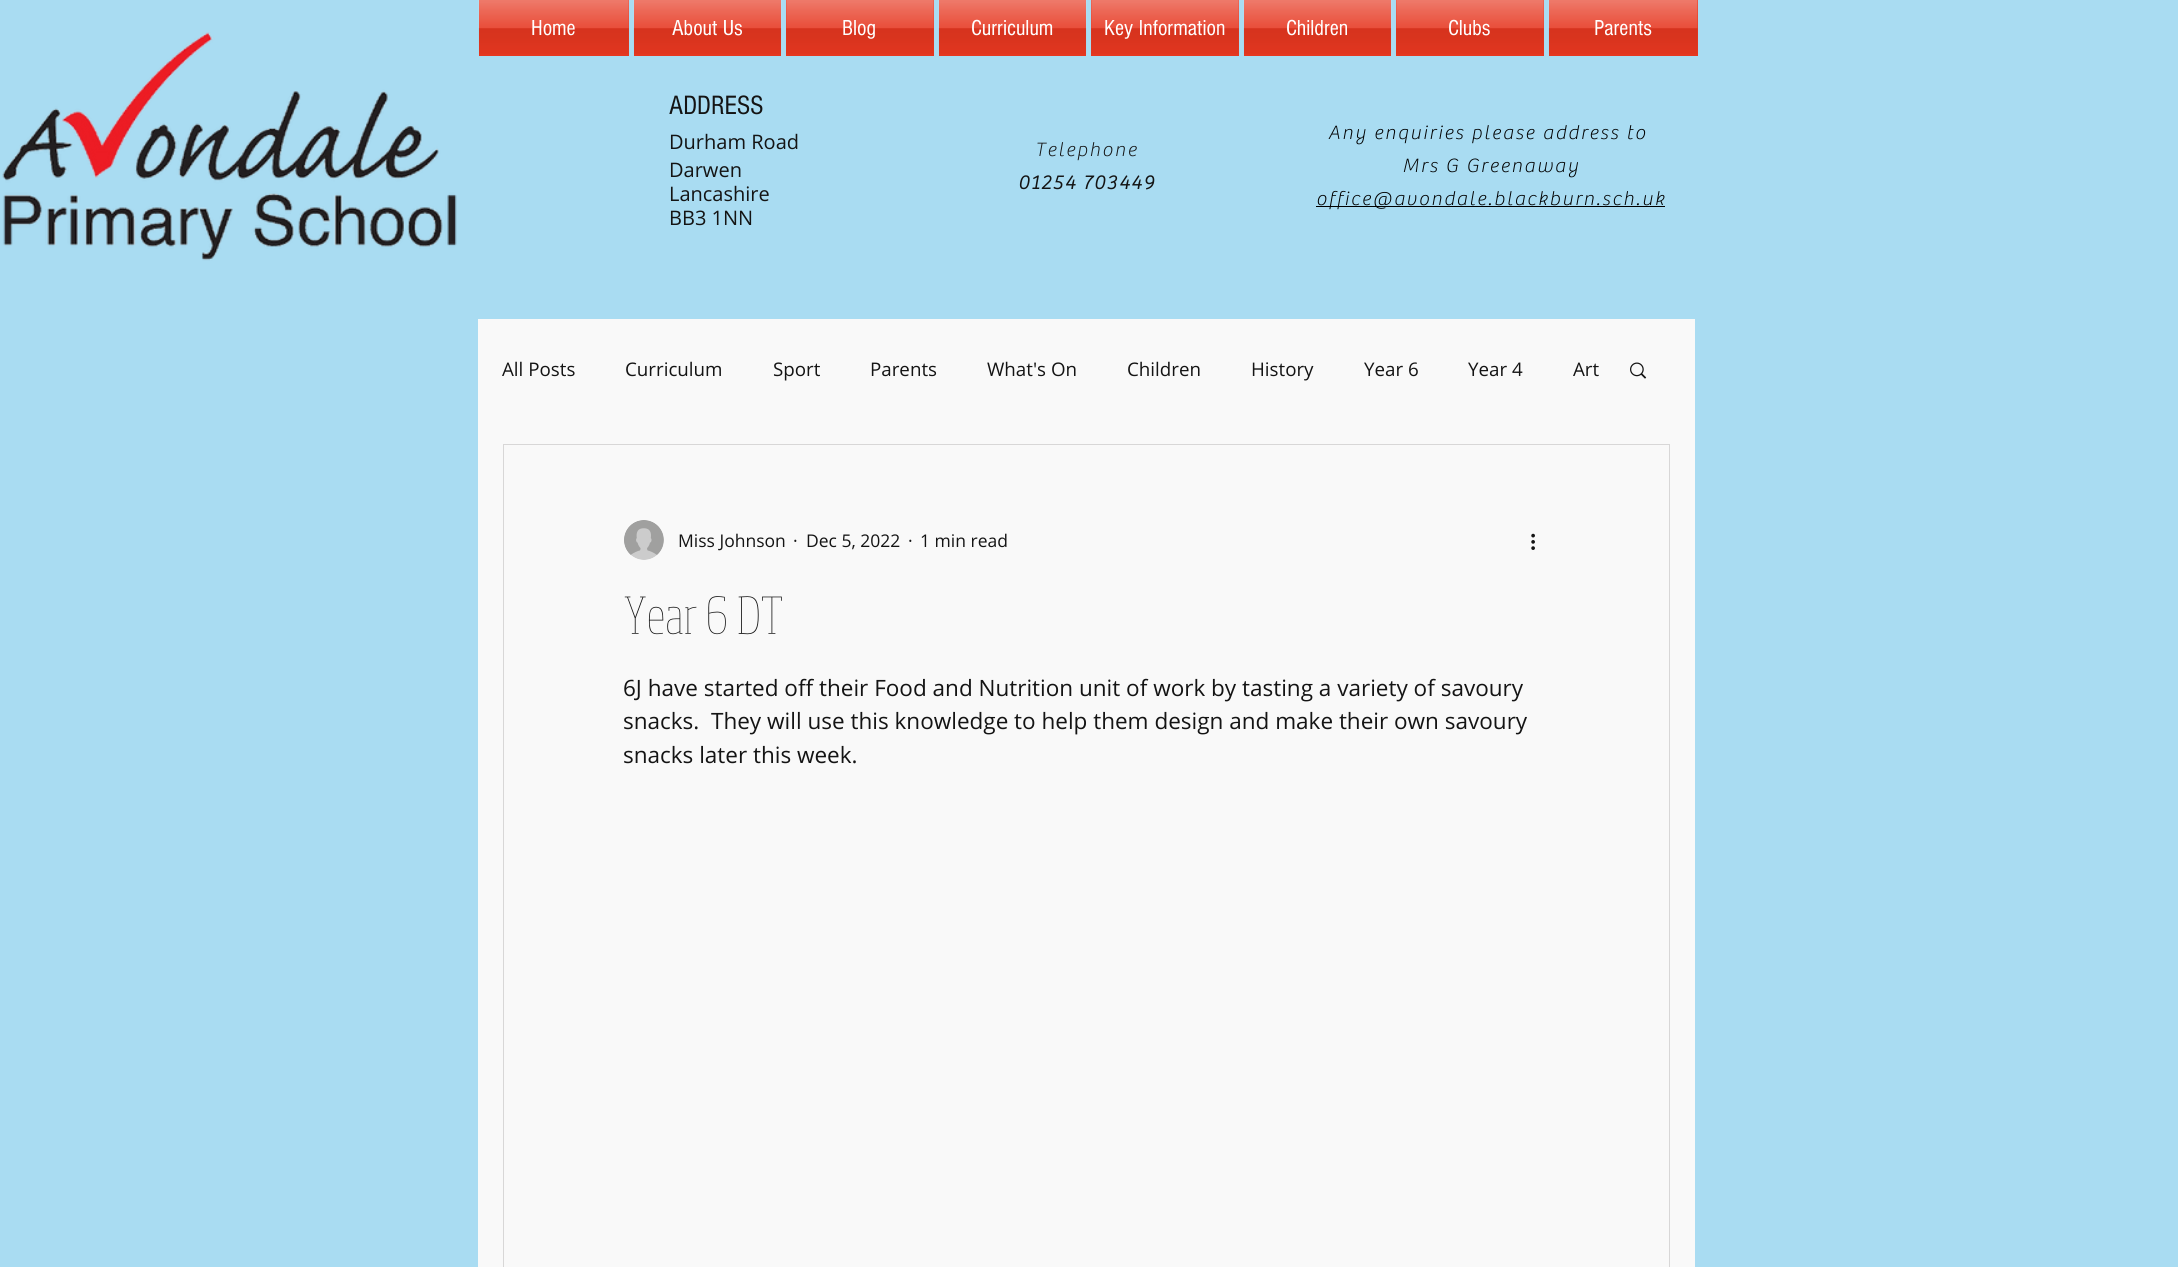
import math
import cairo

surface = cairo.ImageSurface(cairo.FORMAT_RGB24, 2178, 1267)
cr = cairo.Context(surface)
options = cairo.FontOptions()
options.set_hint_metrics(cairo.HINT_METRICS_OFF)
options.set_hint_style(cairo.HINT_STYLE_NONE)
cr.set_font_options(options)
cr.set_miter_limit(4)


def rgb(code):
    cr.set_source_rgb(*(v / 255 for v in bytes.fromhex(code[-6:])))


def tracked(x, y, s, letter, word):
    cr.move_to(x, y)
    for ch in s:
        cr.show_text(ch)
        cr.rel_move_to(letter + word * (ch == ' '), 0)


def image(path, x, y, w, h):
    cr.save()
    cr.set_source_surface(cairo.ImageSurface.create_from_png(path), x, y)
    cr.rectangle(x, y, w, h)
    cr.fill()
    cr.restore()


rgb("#a9dcf2")
cr.paint()
rgb("#e63720")
cr.rectangle(479, 0, 150, 56)
cr.fill()
image("img/1.png", 478, 0, 151, 54)
cr.rectangle(634, 0, 147, 56)
cr.fill()
image("img/2.png", 633, 0, 149, 54)
cr.rectangle(786, 0, 148, 56)
cr.fill()
image("img/3.png", 786, 0, 148, 54)
cr.rectangle(939, 0, 147, 56)
cr.fill()
image("img/2.png", 938, 0, 149, 54)
cr.rectangle(1091, 0, 148, 56)
cr.fill()
image("img/3.png", 1091, 0, 148, 54)
cr.rectangle(1244, 0, 147, 56)
cr.fill()
image("img/2.png", 1243, 0, 149, 54)
cr.rectangle(1396, 0, 148, 56)
cr.fill()
image("img/3.png", 1396, 0, 148, 54)
cr.rectangle(1549, 0, 149, 56)
cr.fill()
image("img/4.png", 1548, 0, 150, 54)
image("img/5.png", 2, 32, 455, 229)
rgb("#000000")
cr.rectangle(1316, 206, 349, 1)
cr.fill()
rgb("#f9f9f9")
cr.rectangle(478, 319, 1217, 948)
cr.fill()
image("img/6.png", 1630, 362, 17, 17)
cr.rectangle(503.5, 444.5, 1166, 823)
rgb("#d8d7d7")
cr.set_line_width(1)
cr.stroke()
image("img/7.png", 624, 520, 40, 40)
image("img/8.png", 1531, 533, 4, 17)
image("img/9.png", 624, 596, 158, 39)
cr.select_font_face("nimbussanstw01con")
cr.set_font_size(22.5)
rgb("#ffffff")
for x, y, s in [
    (531, 35, "Home"),
    (672, 35, "About Us"),
    (842, 35, "Blog"),
    (971, 35, "Curriculum"),
    (1104, 35, "Key Information"),
    (1286, 35, "Children"),
    (1448, 35, "Clubs"),
    (1594, 35, "Parents"),
]:
    cr.move_to(x, y)
    cr.show_text(s)
cr.set_font_size(27.5)
rgb("#141414")
cr.move_to(669, 114)
cr.show_text("ADDRESS")
cr.select_font_face("Open Sans")
cr.set_font_size(20)
for x, y, s in [
    (669, 149, "Durham Road"),
    (669, 177, "Darwen"),
    (669, 201, "Lancashire"),
    (669, 225, "BB3 1NN"),
]:
    cr.move_to(x, y)
    cr.show_text(s)
cr.select_font_face("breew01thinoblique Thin")
tracked(1035, 156, "Telephone", 2, 0)
cr.select_font_face("breew01thinoblique", cairo.FONT_SLANT_NORMAL, cairo.FONT_WEIGHT_BOLD)
tracked(1018, 189, "01254 703449", 2, 0)
cr.select_font_face("breew01thinoblique Thin")
rgb("#000000")
for x, y, s in [
    (1328, 139, "Any enquiries please address to"),
    (1402, 172, "Mrs G Greenaway"),
    (1316, 205, "office@avondale.blackburn.sch.uk"),
]:
    tracked(x, y, s, 2, 0)
cr.select_font_face("Open Sans")
cr.set_font_size(18.75)
rgb("#141414")
for x, y, s in [
    (502, 376, "All Posts"),
    (625, 376, "Curriculum"),
    (773, 376, "Sport"),
    (870, 376, "Parents"),
    (987, 376, "What's On"),
    (1127, 376, "Children"),
    (1251, 376, "History"),
    (1364, 376, "Year 6"),
    (1468, 376, "Year 4"),
    (1573, 376, "Art"),
]:
    cr.move_to(x, y)
    cr.show_text(s)
cr.set_font_size(17.5)
for x, y, s in [
    (678, 547, "Miss Johnson"),
    (793, 547, "·"),
    (806, 547, "Dec 5, 2022"),
    (908, 547, "·"),
    (920, 547, "1 min read"),
]:
    cr.move_to(x, y)
    cr.show_text(s)
cr.set_font_size(22.5)
for x, y, s in [
    (623, 696, "6J have started off their Food and Nutrition unit of work by tasting a variety of savoury"),
    (623, 729, "snacks.  They will use this knowledge to help them design and make their own savoury"),
    (623, 763, "snacks later this week."),
]:
    cr.move_to(x, y)
    cr.show_text(s)
surface.write_to_png("page.png")
